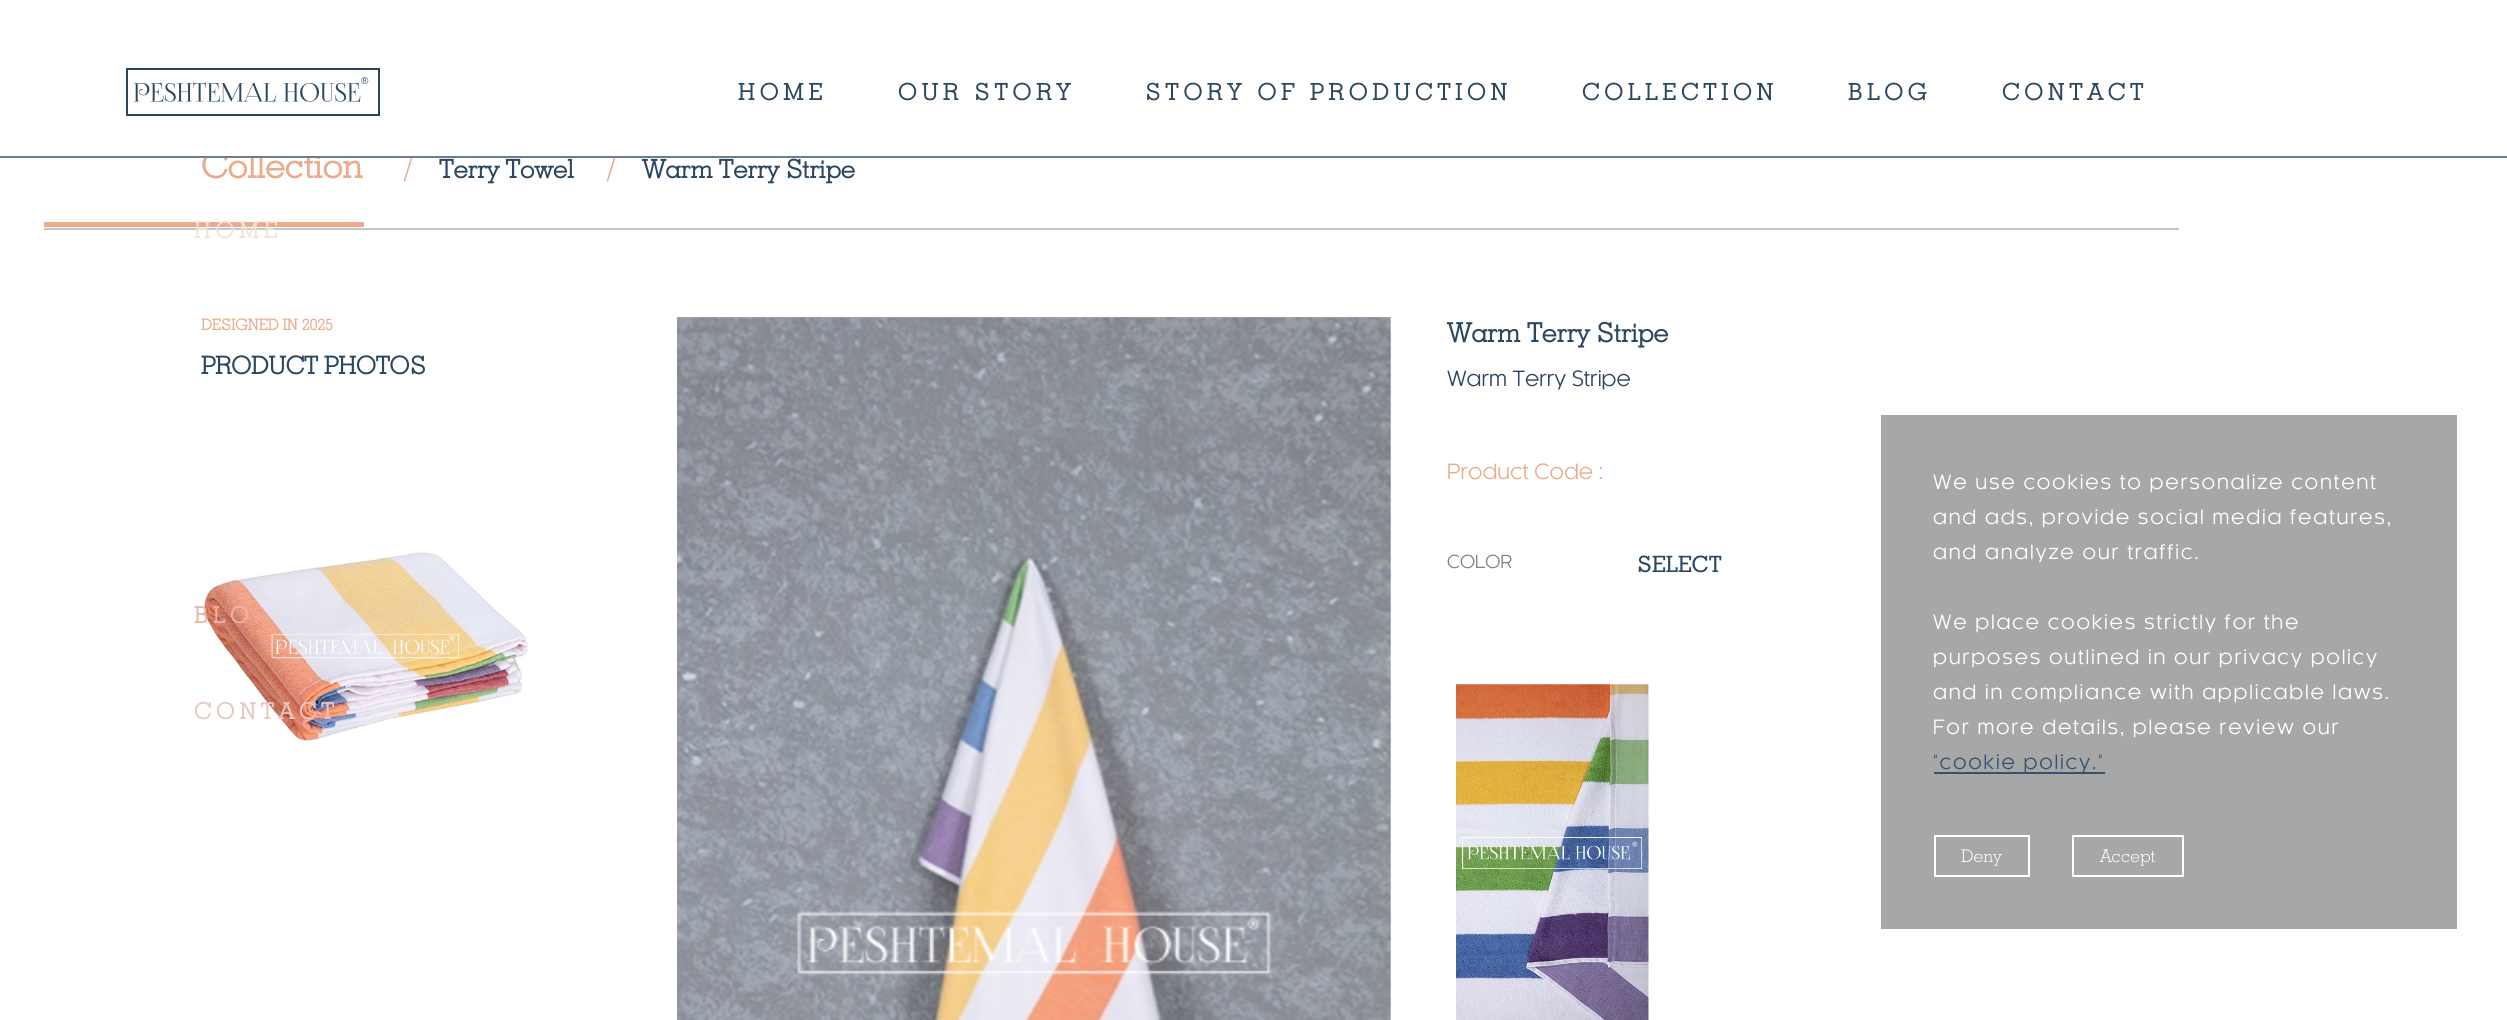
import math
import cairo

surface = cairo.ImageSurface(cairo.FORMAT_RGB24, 2507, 1020)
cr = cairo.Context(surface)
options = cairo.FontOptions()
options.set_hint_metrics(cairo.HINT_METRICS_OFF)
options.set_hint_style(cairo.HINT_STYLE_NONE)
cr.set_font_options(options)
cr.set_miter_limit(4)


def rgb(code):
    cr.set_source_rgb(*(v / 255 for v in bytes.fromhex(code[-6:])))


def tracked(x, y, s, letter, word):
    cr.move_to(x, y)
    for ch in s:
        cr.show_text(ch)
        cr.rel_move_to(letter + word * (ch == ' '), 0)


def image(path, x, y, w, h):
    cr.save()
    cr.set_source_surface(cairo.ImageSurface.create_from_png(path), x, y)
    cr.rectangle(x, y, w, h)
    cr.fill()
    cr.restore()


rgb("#ffffff")
cr.paint()
cr.rectangle(127, 69, 252, 46)
rgb("#2b4660")
cr.stroke()
image("img/1.png", 133, 81, 228, 22)
rgb("#c6c6c6")
cr.rectangle(44, 228, 2135, 2)
cr.fill()
rgb("#ebac8b")
cr.rectangle(44, 222, 320, 5)
cr.fill()
image("img/2.png", 203, 552, 325, 190)
image("img/3.png", 677, 317, 714, 703)
image("img/4.png", 1456, 684, 193, 336)
rgb("#a7a7a7")
cr.rectangle(1881, 415, 576, 514)
cr.fill()
rgb("#365071")
cr.rectangle(1934, 772, 171, 2)
cr.fill()
cr.rectangle(1935, 836, 94, 40)
rgb("#ffffff")
cr.stroke()
cr.rectangle(2073, 836, 110, 40)
cr.stroke()
cr.select_font_face("Liberation Sans")
cr.set_font_size(10)
rgb("#2b4660")
cr.move_to(361, 84)
cr.show_text("®")
cr.select_font_face("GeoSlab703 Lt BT", cairo.FONT_SLANT_NORMAL, cairo.FONT_WEIGHT_BOLD)
cr.set_font_size(22.75)
for x, y, s in [
    (738, 100, "HOME"),
    (898, 100, "OUR STORY"),
    (1145, 100, "STORY OF PRODUCTION"),
    (1582, 100, "COLLECTION"),
    (1848, 100, "BLOG"),
    (2002, 100, "CONTACT"),
]:
    tracked(x, y, s, 5.25, 0)
cr.set_font_size(22.5)
rgb("#f3e2d9")
tracked(194, 238, "HOME", 5.25, 0)
rgb("#e9b4a5")
tracked(194, 623, "BLO", 5.25, 0)
rgb("#e6c8c3")
tracked(194, 719, "CONTACT", 5.25, 0)
cr.set_font_size(35.5)
rgb("#ebac8b")
cr.move_to(201, 178)
cr.show_text("Collection")
cr.select_font_face("GeoSlab703 Lt BT Light")
cr.move_to(403, 178)
cr.show_text("/")
cr.select_font_face("GeoSlab703 Lt BT", cairo.FONT_SLANT_NORMAL, cairo.FONT_WEIGHT_BOLD)
cr.set_font_size(25.5)
rgb("#2b4660")
cr.move_to(439, 178)
cr.show_text("Terry Towel")
cr.select_font_face("GeoSlab703 Lt BT Light")
cr.set_font_size(35.5)
rgb("#ebac8b")
cr.move_to(606, 178)
cr.show_text("/")
rgb("#6b7e90")
cr.rectangle(0, 156, 2507, 2)
cr.fill()
rgb("#ffffff")
cr.rectangle(206, 151, 412, 5)
cr.fill()
cr.select_font_face("GeoSlab703 Lt BT", cairo.FONT_SLANT_NORMAL, cairo.FONT_WEIGHT_BOLD)
cr.set_font_size(25.5)
rgb("#2b4660")
cr.move_to(642, 178)
cr.show_text("Warm Terry Stripe")
cr.set_font_size(15.25)
rgb("#ebac8b")
cr.move_to(201, 330)
cr.show_text("DESIGNED IN 2025")
cr.set_font_size(24.5)
rgb("#2b4660")
cr.move_to(201, 374)
cr.show_text("PRODUCT PHOTOS")
cr.set_font_size(26.5)
cr.move_to(1447, 342)
cr.show_text("Warm Terry Stripe")
cr.select_font_face("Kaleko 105")
cr.set_font_size(20.5)
cr.move_to(1447, 386)
cr.show_text("Warm Terry Stripe")
rgb("#ebac8b")
cr.move_to(1447, 479)
cr.show_text("Product Code :")
cr.set_font_size(17.5)
rgb("#78808a")
cr.move_to(1447, 568)
cr.show_text("COLOR")
cr.select_font_face("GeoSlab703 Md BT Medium")
cr.set_font_size(22.5)
rgb("#2b4660")
cr.move_to(1637, 572)
cr.show_text("SELECT")
cr.select_font_face("Kaleko 105")
cr.set_font_size(19.25)
rgb("#ffffff")
for x, y, s in [
    (1933, 489, "We use cookies to personalize content"),
    (1933, 524, "and ads, provide social media features,"),
    (1933, 559, "and analyze our traffic."),
    (1933, 629, "We place cookies strictly for the"),
    (1933, 664, "purposes outlined in our privacy policy"),
    (1933, 699, "and in compliance with applicable laws."),
    (1933, 734, "For more details, please review our"),
]:
    tracked(x, y, s, 1.75, 0)
rgb("#365071")
tracked(1933, 769, "\"cookie policy.\"", 1.75, 0)
cr.select_font_face("GeoSlab703 Lt BT Light")
cr.set_font_size(17.5)
rgb("#ffffff")
cr.move_to(1961, 862)
cr.show_text("Deny")
cr.move_to(2100, 862)
cr.show_text("Accept")
surface.write_to_png("page.png")
